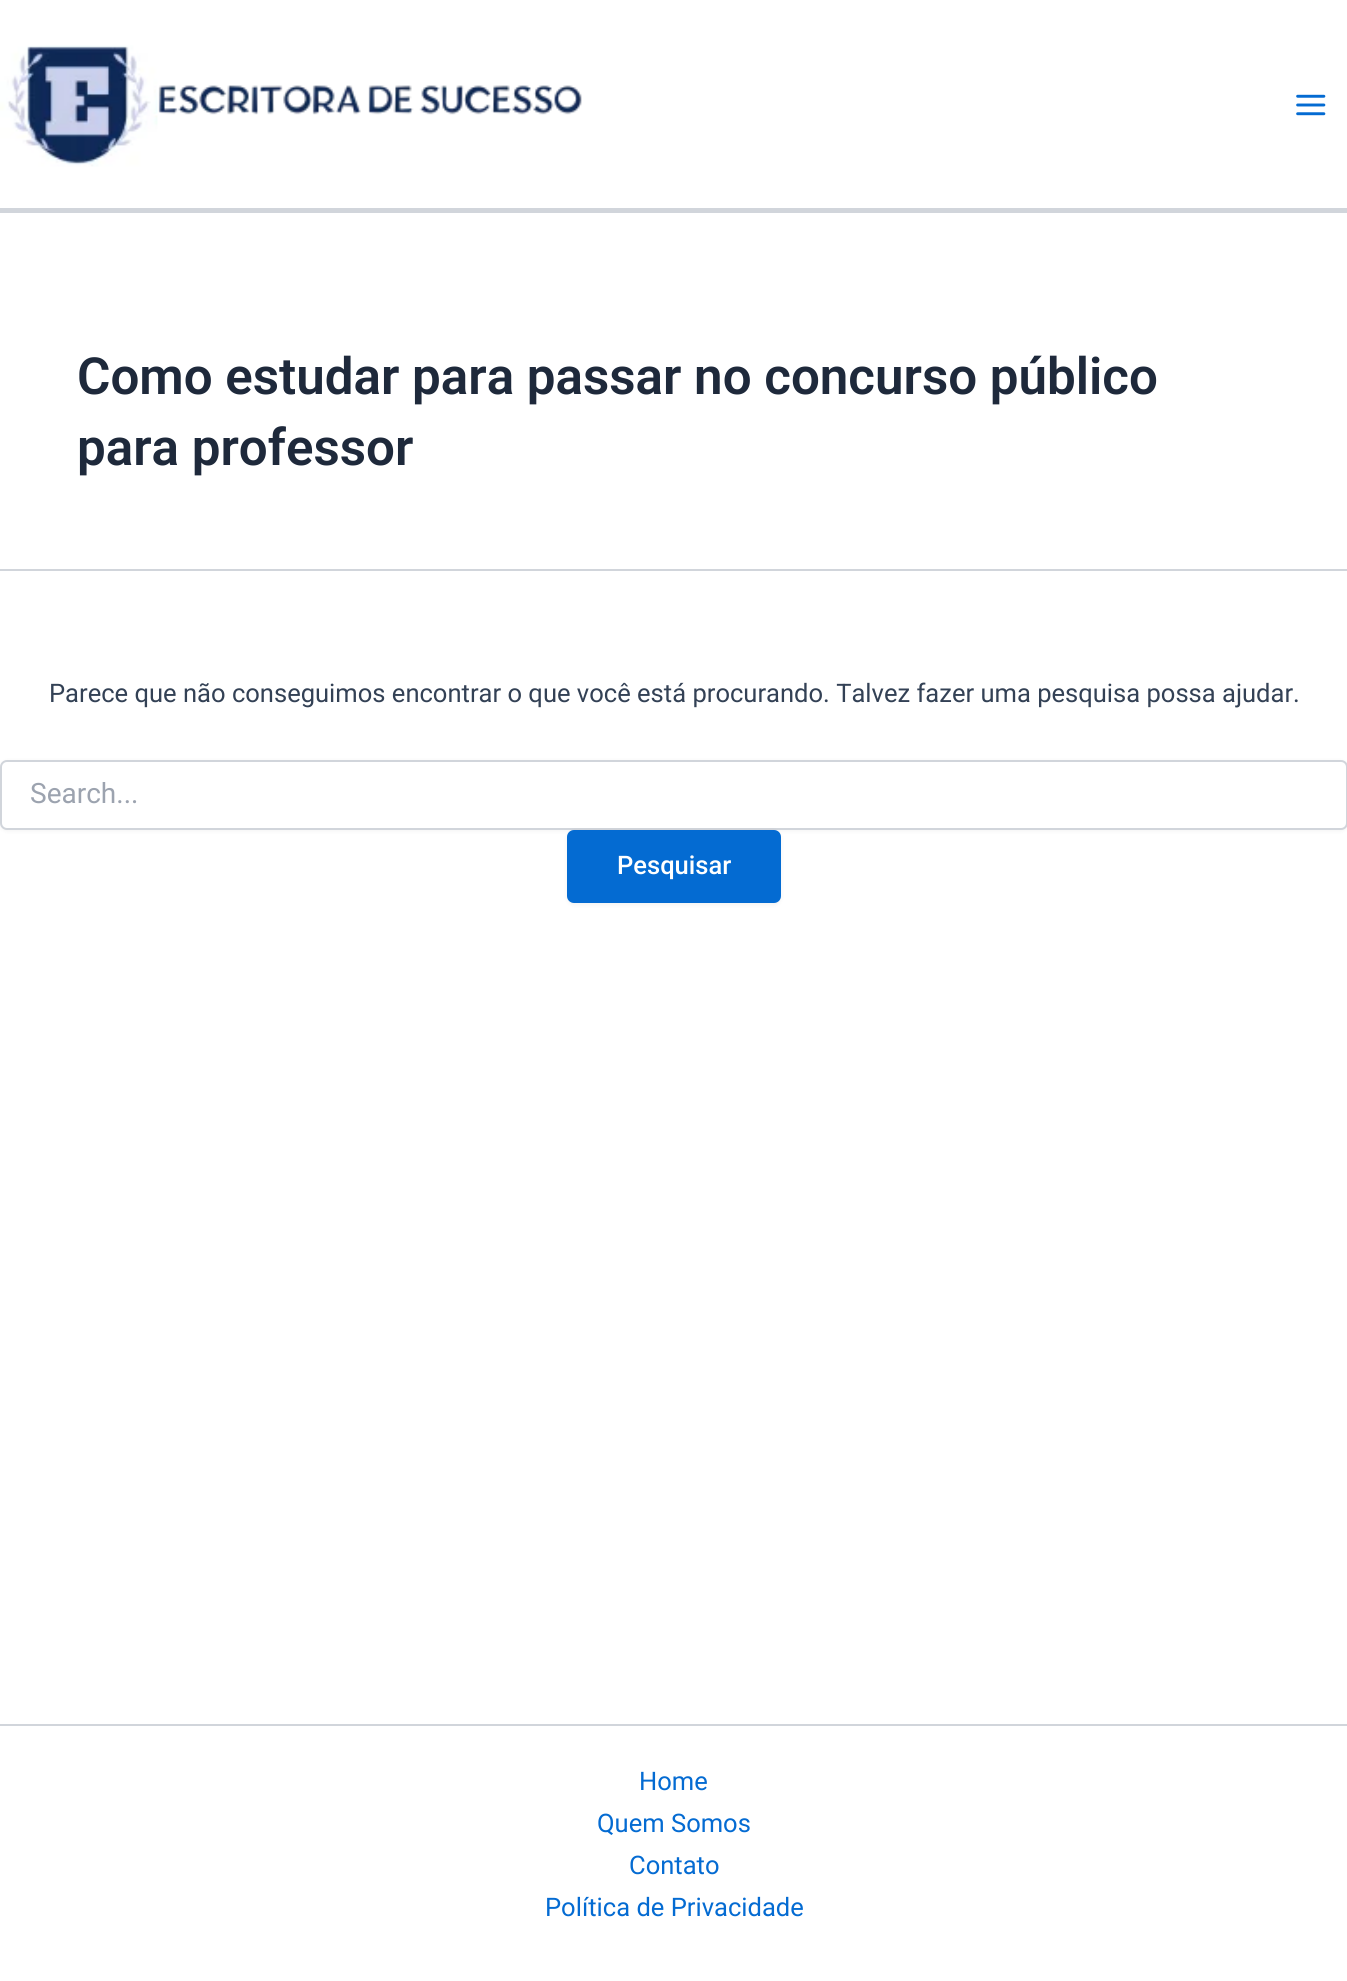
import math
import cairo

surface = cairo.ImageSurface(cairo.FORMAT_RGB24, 1347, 1981)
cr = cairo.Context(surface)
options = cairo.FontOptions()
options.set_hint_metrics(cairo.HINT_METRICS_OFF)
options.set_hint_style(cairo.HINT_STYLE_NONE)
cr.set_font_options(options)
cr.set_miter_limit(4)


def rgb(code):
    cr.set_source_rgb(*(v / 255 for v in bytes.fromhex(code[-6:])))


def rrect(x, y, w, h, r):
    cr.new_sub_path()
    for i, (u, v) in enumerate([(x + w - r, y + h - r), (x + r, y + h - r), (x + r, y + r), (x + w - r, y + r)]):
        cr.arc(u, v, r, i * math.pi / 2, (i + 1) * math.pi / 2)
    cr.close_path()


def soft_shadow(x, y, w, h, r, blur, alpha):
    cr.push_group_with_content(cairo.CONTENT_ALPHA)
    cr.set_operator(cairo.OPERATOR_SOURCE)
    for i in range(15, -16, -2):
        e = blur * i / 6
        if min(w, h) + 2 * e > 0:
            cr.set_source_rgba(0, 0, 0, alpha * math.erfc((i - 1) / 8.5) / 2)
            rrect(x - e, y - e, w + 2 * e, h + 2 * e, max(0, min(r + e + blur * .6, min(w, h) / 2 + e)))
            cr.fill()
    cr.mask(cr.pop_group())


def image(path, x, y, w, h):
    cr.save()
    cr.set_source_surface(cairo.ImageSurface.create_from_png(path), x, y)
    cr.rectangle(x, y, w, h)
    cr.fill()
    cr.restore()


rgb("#ffffff")
cr.paint()
rgb("#d1d5db")
cr.rectangle(0, 208, 1347, 5)
cr.fill()
image("img/1.png", 0, 45, 582, 122)
image("img/2.png", 1296, 94, 30, 22)
cr.rectangle(0, 569, 1347, 2)
cr.fill()
rgb("#000000")
soft_shadow(0, 761, 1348, 70, 7, 2, 0.05)
rgb("#ffffff")
rrect(1, 761, 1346, 68, 6)
cr.fill_preserve()
rgb("#d1d5db")
cr.stroke()
rgb("#000000")
soft_shadow(567, 831, 214, 74, 7, 2, 0.05)
rgb("#046bd2")
rrect(567, 830, 214, 73, 7)
cr.fill()
rgb("#d1d5db")
cr.rectangle(0, 1724, 1347, 2)
cr.fill()
cr.select_font_face("Roboto SemiBold")
cr.set_font_size(51.1)
rgb("#1e293b")
cr.move_to(77, 394)
cr.show_text("Como estudar para passar no concurso público")
cr.move_to(77, 465)
cr.show_text("para professor")
cr.select_font_face("Roboto")
cr.set_font_size(25.55)
rgb("#334155")
cr.move_to(49, 702)
cr.show_text("Parece que não conseguimos encontrar o que você está procurando. Talvez fazer uma pesquisa possa ajudar.")
cr.set_font_size(28)
rgb("#9ca3af")
cr.move_to(30, 803)
cr.show_text("Search...")
cr.select_font_face("Roboto Medium")
cr.set_font_size(25.55)
rgb("#ffffff")
cr.move_to(617, 874)
cr.show_text("Pesquisar")
cr.select_font_face("Roboto")
rgb("#046bd2")
for x, y, s in [
    (639, 1790, "Home"),
    (597, 1832, "Quem Somos"),
    (629, 1874, "Contato"),
    (545, 1916, "Política de Privacidade"),
]:
    cr.move_to(x, y)
    cr.show_text(s)
surface.write_to_png("page.png")
